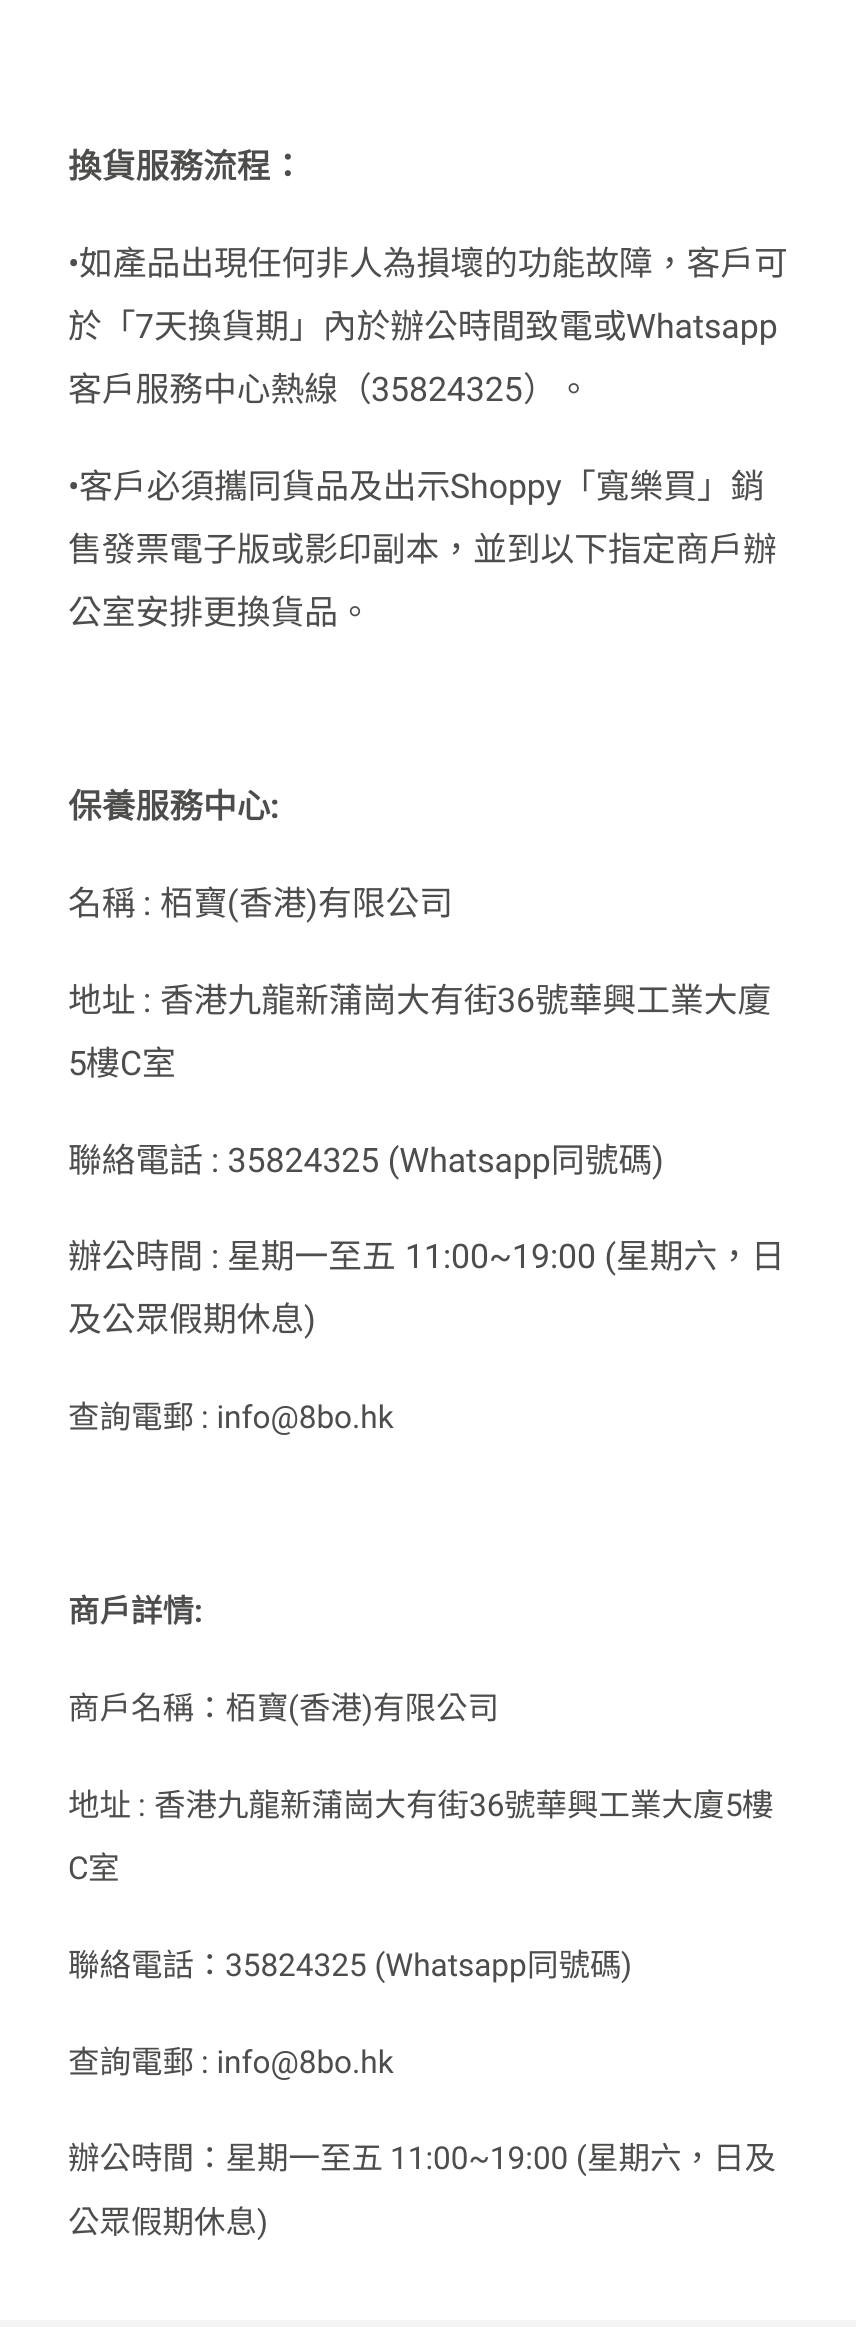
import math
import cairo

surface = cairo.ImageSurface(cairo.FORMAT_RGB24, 856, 2341)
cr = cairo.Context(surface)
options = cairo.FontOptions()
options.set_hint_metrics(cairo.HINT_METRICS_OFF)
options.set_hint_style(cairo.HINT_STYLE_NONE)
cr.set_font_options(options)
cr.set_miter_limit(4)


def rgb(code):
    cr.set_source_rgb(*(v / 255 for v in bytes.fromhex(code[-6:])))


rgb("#f4f4f4")
cr.paint()
rgb("#ffffff")
cr.rectangle(0, 0, 856, 2320)
cr.fill()
cr.rectangle(0, 2327, 856, 14)
cr.fill()
cr.select_font_face("Noto Sans CJK TC", cairo.FONT_SLANT_NORMAL, cairo.FONT_WEIGHT_BOLD)
cr.set_font_size(33.75)
rgb("#4d4d4c")
cr.move_to(68, 178)
cr.show_text("換貨服務流程：")
cr.select_font_face("Roboto")
cr.move_to(68, 275)
cr.show_text("•")
cr.select_font_face("Noto Sans CJK TC")
cr.move_to(79, 275)
cr.show_text("如產品出現任何非人為損壞的功能故障，客戶可")
cr.move_to(68, 338)
cr.show_text("於「")
cr.select_font_face("Roboto")
cr.move_to(135, 338)
cr.show_text("7")
cr.select_font_face("Noto Sans CJK TC")
cr.move_to(154, 338)
cr.show_text("天換貨期」內於辦公時間致電或")
cr.select_font_face("Roboto")
cr.move_to(626, 338)
cr.show_text("Whatsapp")
cr.select_font_face("Noto Sans CJK TC")
cr.move_to(68, 401)
cr.show_text("客戶服務中心熱線（")
cr.select_font_face("Roboto")
cr.move_to(371, 401)
cr.show_text("35824325")
cr.select_font_face("Noto Sans CJK TC")
cr.move_to(523, 401)
cr.show_text("）。")
cr.select_font_face("Roboto")
cr.move_to(68, 498)
cr.show_text("•")
cr.select_font_face("Noto Sans CJK TC")
cr.move_to(79, 498)
cr.show_text("客戶必須攜同貨品及出示")
cr.select_font_face("Roboto")
cr.move_to(450, 498)
cr.show_text("Shoppy")
cr.select_font_face("Noto Sans CJK TC")
for x, y, s in [
    (562, 498, "「寬樂買」銷"),
    (68, 561, "售發票電子版或影印副本，並到以下指定商戶辦"),
    (68, 624, "公室安排更換貨品。"),
]:
    cr.move_to(x, y)
    cr.show_text(s)
cr.select_font_face("Noto Sans CJK TC", cairo.FONT_SLANT_NORMAL, cairo.FONT_WEIGHT_BOLD)
cr.move_to(68, 818)
cr.show_text("保養服務中心")
cr.select_font_face("Roboto", cairo.FONT_SLANT_NORMAL, cairo.FONT_WEIGHT_BOLD)
cr.move_to(270, 818)
cr.show_text(":")
cr.select_font_face("Noto Sans CJK TC")
cr.move_to(68, 915)
cr.show_text("名稱")
cr.select_font_face("Roboto")
cr.move_to(143, 915)
cr.show_text(":")
cr.select_font_face("Noto Sans CJK TC")
cr.move_to(160, 915)
cr.show_text("栢寶")
cr.select_font_face("Roboto")
cr.move_to(227, 915)
cr.show_text("(")
cr.select_font_face("Noto Sans CJK TC")
cr.move_to(239, 915)
cr.show_text("香港")
cr.select_font_face("Roboto")
cr.move_to(306, 915)
cr.show_text(")")
cr.select_font_face("Noto Sans CJK TC")
cr.move_to(318, 915)
cr.show_text("有限公司")
cr.move_to(68, 1012)
cr.show_text("地址")
cr.select_font_face("Roboto")
cr.move_to(143, 1012)
cr.show_text(":")
cr.select_font_face("Noto Sans CJK TC")
cr.move_to(160, 1012)
cr.show_text("香港九龍新蒲崗大有街")
cr.select_font_face("Roboto")
cr.move_to(497, 1012)
cr.show_text("36")
cr.select_font_face("Noto Sans CJK TC")
cr.move_to(535, 1012)
cr.show_text("號華興工業大廈")
cr.select_font_face("Roboto")
cr.move_to(68, 1075)
cr.show_text("5")
cr.select_font_face("Noto Sans CJK TC")
cr.move_to(86, 1075)
cr.show_text("樓")
cr.select_font_face("Roboto")
cr.move_to(120, 1075)
cr.show_text("C")
cr.select_font_face("Noto Sans CJK TC")
cr.move_to(142, 1075)
cr.show_text("室")
cr.move_to(68, 1172)
cr.show_text("聯絡電話")
cr.select_font_face("Roboto")
cr.move_to(211, 1172)
cr.show_text(": 35824325 (Whatsapp")
cr.select_font_face("Noto Sans CJK TC")
cr.move_to(551, 1172)
cr.show_text("同號碼")
cr.select_font_face("Roboto")
cr.move_to(652, 1172)
cr.show_text(")")
cr.select_font_face("Noto Sans CJK TC")
cr.move_to(68, 1268)
cr.show_text("辦公時間")
cr.select_font_face("Roboto")
cr.move_to(211, 1268)
cr.show_text(":")
cr.select_font_face("Noto Sans CJK TC")
cr.move_to(227, 1268)
cr.show_text("星期一至五")
cr.select_font_face("Roboto")
cr.move_to(405, 1268)
cr.show_text("11:00~19:00 (")
cr.select_font_face("Noto Sans CJK TC")
cr.move_to(616, 1268)
cr.show_text("星期六，日")
cr.move_to(68, 1331)
cr.show_text("及公眾假期休息")
cr.select_font_face("Roboto")
cr.move_to(304, 1331)
cr.show_text(")")
cr.select_font_face("Noto Sans CJK TC")
cr.set_font_size(31.5)
cr.move_to(68, 1428)
cr.show_text("查詢電郵")
cr.select_font_face("Roboto")
cr.move_to(201, 1428)
cr.show_text(": info@8bo.hk")
cr.select_font_face("Noto Sans CJK TC", cairo.FONT_SLANT_NORMAL, cairo.FONT_WEIGHT_BOLD)
cr.move_to(68, 1622)
cr.show_text("商戶詳情")
cr.select_font_face("Roboto", cairo.FONT_SLANT_NORMAL, cairo.FONT_WEIGHT_BOLD)
cr.move_to(194, 1622)
cr.show_text(":")
cr.select_font_face("Noto Sans CJK TC")
cr.move_to(68, 1719)
cr.show_text("商戶名稱：栢寶")
cr.select_font_face("Roboto")
cr.move_to(288, 1719)
cr.show_text("(")
cr.select_font_face("Noto Sans CJK TC")
cr.move_to(299, 1719)
cr.show_text("香港")
cr.select_font_face("Roboto")
cr.move_to(362, 1719)
cr.show_text(")")
cr.select_font_face("Noto Sans CJK TC")
cr.move_to(373, 1719)
cr.show_text("有限公司")
cr.move_to(68, 1816)
cr.show_text("地址")
cr.select_font_face("Roboto")
cr.move_to(138, 1816)
cr.show_text(":")
cr.select_font_face("Noto Sans CJK TC")
cr.move_to(154, 1816)
cr.show_text("香港九龍新蒲崗大有街")
cr.select_font_face("Roboto")
cr.move_to(469, 1816)
cr.show_text("36")
cr.select_font_face("Noto Sans CJK TC")
cr.move_to(504, 1816)
cr.show_text("號華興工業大廈")
cr.select_font_face("Roboto")
cr.move_to(725, 1816)
cr.show_text("5")
cr.select_font_face("Noto Sans CJK TC")
cr.move_to(742, 1816)
cr.show_text("樓")
cr.select_font_face("Roboto")
cr.move_to(68, 1879)
cr.show_text("C")
cr.select_font_face("Noto Sans CJK TC")
cr.move_to(88, 1879)
cr.show_text("室")
cr.move_to(68, 1976)
cr.show_text("聯絡電話：")
cr.select_font_face("Roboto")
cr.move_to(225, 1976)
cr.show_text("35824325 (Whatsapp")
cr.select_font_face("Noto Sans CJK TC")
cr.move_to(527, 1976)
cr.show_text("同號碼")
cr.select_font_face("Roboto")
cr.move_to(621, 1976)
cr.show_text(")")
cr.select_font_face("Noto Sans CJK TC")
cr.move_to(68, 2073)
cr.show_text("查詢電郵")
cr.select_font_face("Roboto")
cr.move_to(201, 2073)
cr.show_text(": info@8bo.hk")
cr.select_font_face("Noto Sans CJK TC")
cr.move_to(68, 2169)
cr.show_text("辦公時間：星期一至五")
cr.select_font_face("Roboto")
cr.move_to(390, 2169)
cr.show_text("11:00~19:00 (")
cr.select_font_face("Noto Sans CJK TC")
cr.move_to(587, 2169)
cr.show_text("星期六，日及")
cr.move_to(68, 2233)
cr.show_text("公眾假期休息")
cr.select_font_face("Roboto")
cr.move_to(257, 2233)
cr.show_text(")")
surface.write_to_png("page.png")
